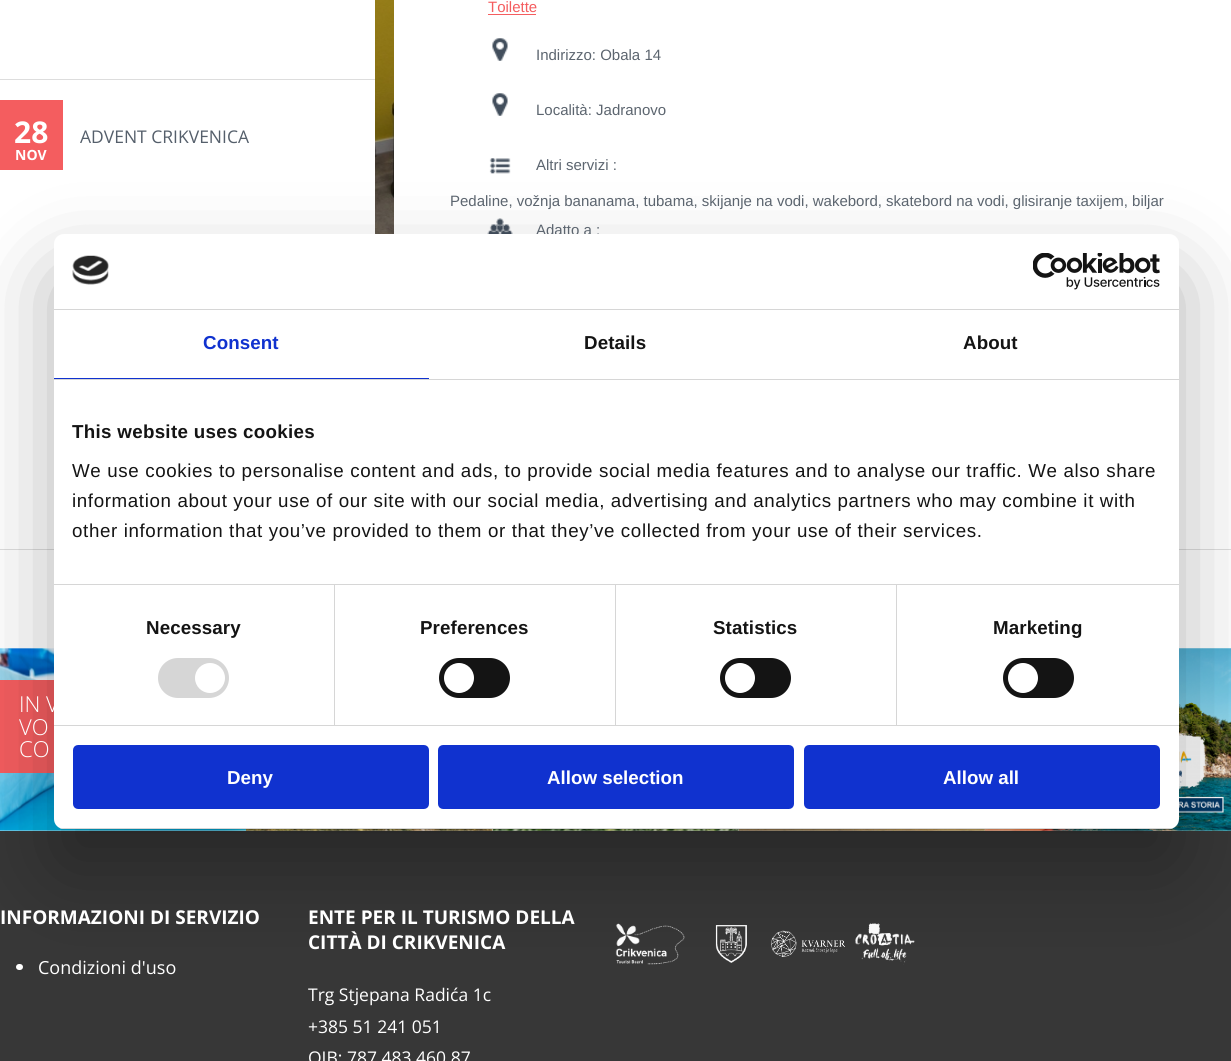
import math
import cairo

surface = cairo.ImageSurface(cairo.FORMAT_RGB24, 1231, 1061)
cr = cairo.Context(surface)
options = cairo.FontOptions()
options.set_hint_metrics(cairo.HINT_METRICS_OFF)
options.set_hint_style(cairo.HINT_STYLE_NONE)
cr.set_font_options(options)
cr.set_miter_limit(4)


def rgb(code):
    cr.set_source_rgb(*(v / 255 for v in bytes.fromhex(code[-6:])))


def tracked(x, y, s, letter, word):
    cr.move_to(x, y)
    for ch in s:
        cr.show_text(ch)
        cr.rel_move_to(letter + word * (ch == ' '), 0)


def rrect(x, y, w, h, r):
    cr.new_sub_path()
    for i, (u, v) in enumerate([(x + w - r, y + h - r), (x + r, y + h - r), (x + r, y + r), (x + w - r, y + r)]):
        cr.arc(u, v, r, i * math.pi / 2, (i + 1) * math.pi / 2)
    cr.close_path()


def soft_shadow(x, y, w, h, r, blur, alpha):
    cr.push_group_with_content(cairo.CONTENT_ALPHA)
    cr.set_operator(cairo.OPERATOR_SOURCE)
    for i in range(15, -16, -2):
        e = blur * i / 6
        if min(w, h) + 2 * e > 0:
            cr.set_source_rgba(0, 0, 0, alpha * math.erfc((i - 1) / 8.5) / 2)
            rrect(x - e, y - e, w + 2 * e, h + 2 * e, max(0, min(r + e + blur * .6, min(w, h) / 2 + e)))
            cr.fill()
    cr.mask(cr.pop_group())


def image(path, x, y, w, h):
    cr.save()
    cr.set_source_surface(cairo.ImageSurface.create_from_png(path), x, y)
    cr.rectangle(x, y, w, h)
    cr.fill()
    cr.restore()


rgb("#ffffff")
cr.paint()
rgb("#dddddd")
cr.rectangle(0, 79, 375, 1)
cr.fill()
image("img/1.png", 375, 0, 19, 234)
rgb("#f45d5f")
cr.rectangle(488, 14, 48, 1)
cr.fill()
image("img/2.png", 492, 38, 16, 23)
image("img/2.png", 492, 93, 16, 23)
image("img/3.png", 489, 158, 22, 16)
image("img/4.png", 487, 218, 26, 16)
cr.rectangle(0, 100, 63, 70)
cr.fill()
rgb("#dddddd")
cr.rectangle(0, 549, 1231, 1)
cr.fill()
image("img/5.png", 0, 648, 246, 183)
rgb("#f45d5f")
cr.rectangle(0, 680, 54, 93)
cr.fill()
image("img/8.png", 493, 829, 247, 2)
image("img/9.png", 739, 829, 247, 2)
image("img/6.png", 985, 648, 246, 183)
image("img/7.png", 246, 829, 247, 2)
rgb("#373737")
cr.rectangle(0, 831, 1231, 230)
cr.fill()
rgb("#ffffff")
rrect(16, 964, 7, 6, 3)
cr.fill()
image("img/12.png", 615, 923, 70, 42)
image("img/13.png", 715, 925, 32, 38)
image("img/14.png", 771, 930, 74, 27)
image("img/15.png", 855, 923, 60, 42)
rgb("#000000")
soft_shadow(54, 274, 1125, 595, 10, 42.5, 0.3)
cr.select_font_face("Liberation Sans")
cr.set_font_size(15)
rgb("#f45d5f")
cr.move_to(488, 12)
cr.show_text("Toilette")
rgb("#5c656f")
for x, y, s in [
    (536, 60, "Indirizzo: Obala 14"),
    (536, 115, "Località: Jadranovo"),
    (536, 170, "Altri servizi :"),
    (450, 206, "Pedaline, vožnja bananama, tubama, skijanje na vodi, wakebord, skatebord na vodi, glisiranje taxijem, biljar"),
    (536, 235, "Adatto a :"),
]:
    cr.move_to(x, y)
    cr.show_text(s)
cr.select_font_face("Open Sans", cairo.FONT_SLANT_NORMAL, cairo.FONT_WEIGHT_BOLD)
cr.set_font_size(30)
rgb("#ffffff")
cr.move_to(14, 143)
cr.show_text("28")
cr.set_font_size(14)
cr.move_to(15, 160)
cr.show_text("NOV")
cr.select_font_face("Open Sans")
cr.set_font_size(17.5)
rgb("#555f6b")
cr.move_to(80, 143)
cr.show_text("ADVENT CRIKVENICA")
cr.select_font_face("Open Sans Light")
cr.set_font_size(22)
rgb("#ffffff")
for x, y, s in [
    (19, 712, "IN V"),
    (19, 735, "VO"),
    (19, 757, "CO"),
]:
    cr.move_to(x, y)
    cr.show_text(s)
rrect(54, 234, 1125, 595, 10)
cr.fill()
rgb("#d6d6d6")
cr.rectangle(54, 309, 1125, 1)
cr.fill()
image("img/10.png", 72, 255, 37, 30)
image("img/11.png", 1033, 253, 127, 37)
cr.rectangle(54, 379, 1125, 1)
cr.fill()
rgb("#1032cf")
cr.rectangle(54, 378, 375, 1)
cr.fill()
cr.select_font_face("Liberation Sans", cairo.FONT_SLANT_NORMAL, cairo.FONT_WEIGHT_BOLD)
cr.set_font_size(18.75)
tracked(203, 349, "Consent", 0.1, 0)
rgb("#141414")
tracked(584, 349, "Details", 0.1, 0)
tracked(963, 349, "About", 0.1, 0)
rgb("#d6d6d6")
cr.rectangle(54, 584, 1125, 1)
cr.fill()
rgb("#141414")
tracked(72, 438, "This website uses cookies", 0.3, 0)
cr.select_font_face("Liberation Sans")
for x, y, s in [
    (72, 477, "We use cookies to personalise content and ads, to provide social media features and to analyse our traffic. We also share"),
    (72, 507, "information about your use of our site with our social media, advertising and analytics partners who may combine it with"),
    (72, 537, "other information that you’ve provided to them or that they’ve collected from your use of their services."),
]:
    tracked(x, y, s, 0.62, 0)
rgb("#d6d6d6")
cr.rectangle(54, 725, 1125, 1)
cr.fill()
cr.rectangle(334, 585, 1, 140)
cr.fill()
cr.select_font_face("Liberation Sans", cairo.FONT_SLANT_NORMAL, cairo.FONT_WEIGHT_BOLD)
rgb("#141414")
tracked(146, 634, "Necessary", 0.1, 0)
rgb("#d6d6d6")
rrect(158, 658, 71, 40, 20)
cr.fill()
rgb("#ffffff")
cr.arc(210, 678, 15, 0, 2 * math.pi)
cr.fill()
rgb("#d6d6d6")
cr.rectangle(615, 585, 1, 140)
cr.fill()
rgb("#141414")
tracked(420, 634, "Preferences", 0.1, 0)
rrect(439, 658, 71, 40, 20)
cr.fill()
rgb("#ffffff")
cr.arc(459, 678, 15, 0, 2 * math.pi)
cr.fill()
rgb("#d6d6d6")
cr.rectangle(896, 585, 1, 140)
cr.fill()
rgb("#141414")
tracked(713, 634, "Statistics", 0.1, 0)
rrect(720, 658, 71, 40, 20)
cr.fill()
rgb("#ffffff")
cr.arc(740, 678, 15, 0, 2 * math.pi)
cr.fill()
rgb("#141414")
tracked(993, 634, "Marketing", 0.1, 0)
rrect(1003, 658, 71, 40, 20)
cr.fill()
rgb("#ffffff")
cr.arc(1023, 678, 15, 0, 2 * math.pi)
cr.fill()
cr.save()
rrect(54, 234, 1125, 595, 10)
cr.clip()
rgb("#d6d6d6")
cr.rectangle(54, 828, 1125, 1)
cr.fill()
cr.restore()
rgb("#1032cf")
rrect(74.5, 746.5, 353, 61, 3.5)
cr.fill_preserve()
cr.set_line_width(3)
cr.stroke()
rgb("#ffffff")
cr.move_to(227, 784)
cr.show_text("Deny")
rgb("#1032cf")
rrect(439.5, 746.5, 353, 61, 3.5)
cr.fill_preserve()
cr.stroke()
rgb("#ffffff")
cr.move_to(547, 784)
cr.show_text("Allow selection")
rgb("#1032cf")
rrect(805.5, 746.5, 353, 61, 3.5)
cr.fill_preserve()
cr.stroke()
rgb("#ffffff")
cr.move_to(943, 784)
cr.show_text("Allow all")
cr.select_font_face("Open Sans", cairo.FONT_SLANT_NORMAL, cairo.FONT_WEIGHT_BOLD)
cr.set_font_size(19)
cr.move_to(0, 924)
cr.show_text("INFORMAZIONI DI SERVIZIO")
cr.select_font_face("Open Sans")
cr.set_font_size(18)
cr.move_to(38, 974)
cr.show_text("Condizioni d'uso")
cr.select_font_face("Open Sans", cairo.FONT_SLANT_NORMAL, cairo.FONT_WEIGHT_BOLD)
cr.set_font_size(19)
cr.move_to(308, 924)
cr.show_text("ENTE PER IL TURISMO DELLA")
cr.move_to(308, 949)
cr.show_text("CITTÀ DI CRIKVENICA")
cr.select_font_face("Open Sans")
cr.set_font_size(17.5)
for x, y, s in [
    (308, 1001, "Trg Stjepana Radića 1c"),
    (308, 1033, "+385 51 241 051"),
    (308, 1064, "OIB: 787 483 460 87"),
]:
    cr.move_to(x, y)
    cr.show_text(s)
surface.write_to_png("page.png")
